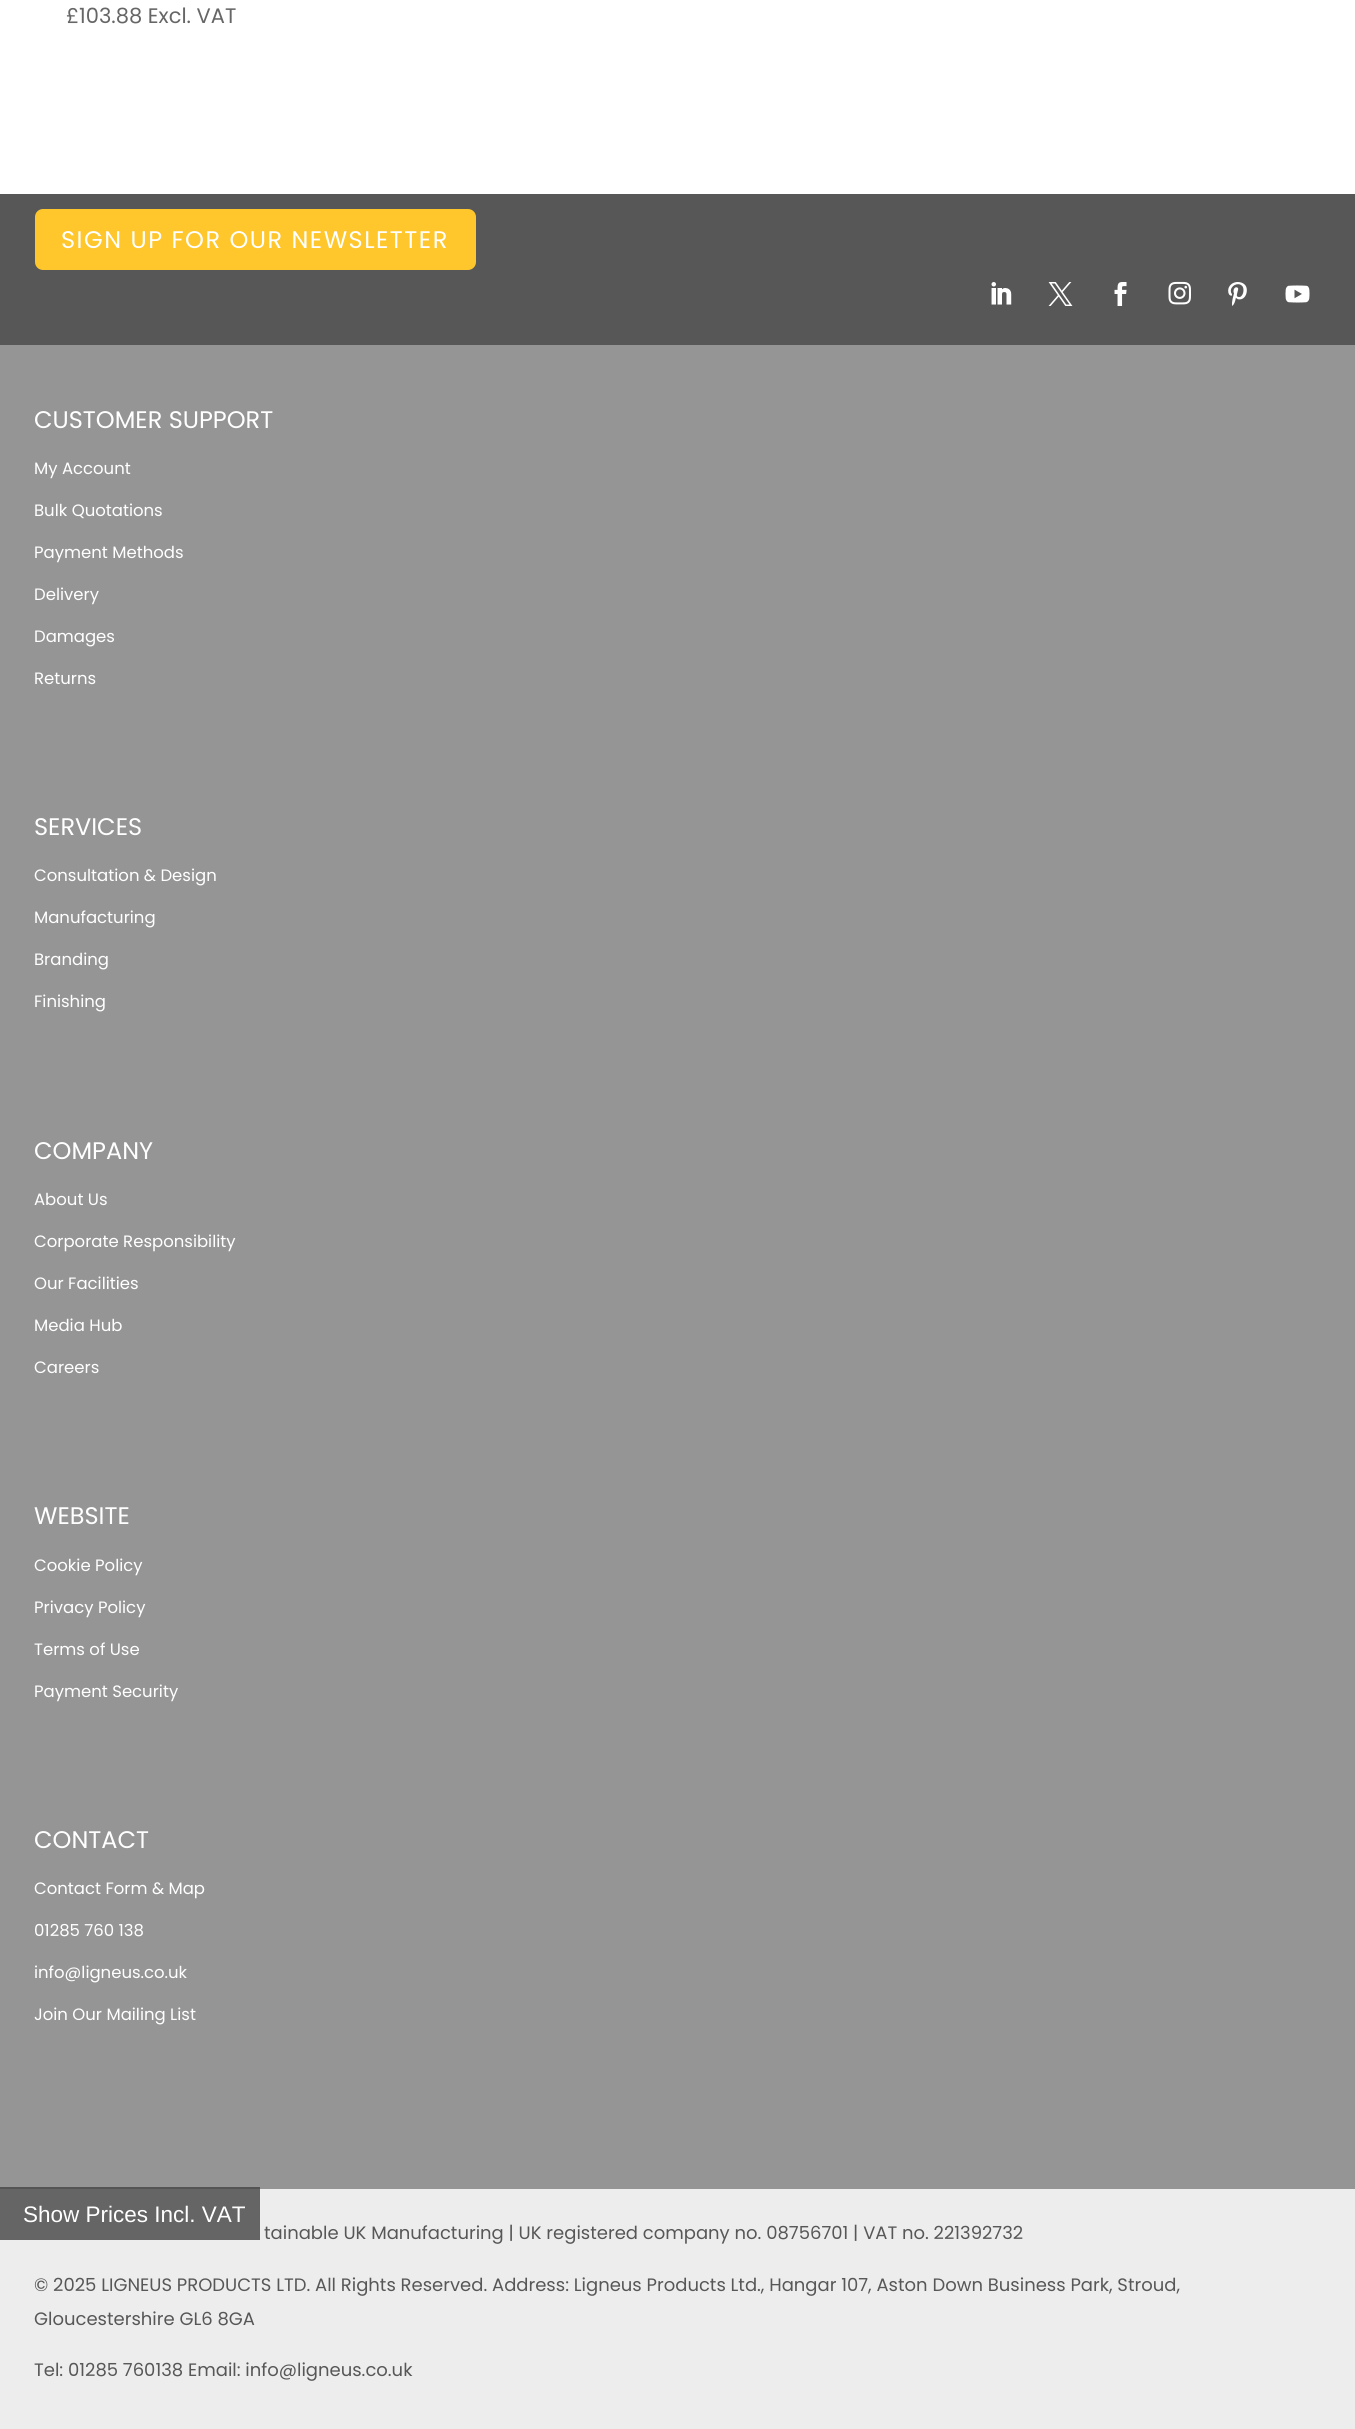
import math
import cairo

surface = cairo.ImageSurface(cairo.FORMAT_RGB24, 1355, 2429)
cr = cairo.Context(surface)
options = cairo.FontOptions()
options.set_hint_metrics(cairo.HINT_METRICS_OFF)
options.set_hint_style(cairo.HINT_STYLE_NONE)
cr.set_font_options(options)
cr.set_miter_limit(4)


def rgb(code):
    cr.set_source_rgb(*(v / 255 for v in bytes.fromhex(code[-6:])))


def tracked(x, y, s, letter, word):
    cr.move_to(x, y)
    for ch in s:
        cr.show_text(ch)
        cr.rel_move_to(letter + word * (ch == ' '), 0)


def rrect(x, y, w, h, r):
    cr.new_sub_path()
    for i, (u, v) in enumerate([(x + w - r, y + h - r), (x + r, y + h - r), (x + r, y + r), (x + w - r, y + r)]):
        cr.arc(u, v, r, i * math.pi / 2, (i + 1) * math.pi / 2)
    cr.close_path()


def image(path, x, y, w, h):
    cr.save()
    cr.set_source_surface(cairo.ImageSurface.create_from_png(path), x, y)
    cr.rectangle(x, y, w, h)
    cr.fill()
    cr.restore()


rgb("#ffffff")
cr.paint()
rgb("#575757")
cr.rectangle(0, 194, 1355, 151)
cr.fill()
rgb("#ffc72c")
rrect(36.5, 210.5, 438, 58, 6.5)
cr.fill_preserve()
cr.set_line_width(3)
cr.stroke()
image("img/1.png", 991, 282, 21, 23)
image("img/2.png", 1048, 282, 25, 24)
image("img/3.png", 1114, 282, 13, 24)
image("img/4.png", 1168, 281, 23, 24)
image("img/5.png", 1228, 282, 19, 24)
image("img/6.png", 1285, 285, 25, 18)
rgb("#959595")
cr.rectangle(0, 345, 1355, 1844)
cr.fill()
rgb("#ededed")
cr.rectangle(0, 2189, 1355, 240)
cr.fill()
cr.set_source_rgba(0.267, 0.267, 0.267, 0.8)
cr.rectangle(0, 2187, 260, 53)
cr.fill()
cr.select_font_face("Poppins")
cr.set_font_size(21)
rgb("#666666")
cr.move_to(66, 23)
cr.show_text("£103.88 Excl. VAT")
cr.set_font_size(24)
rgb("#ffffff")
tracked(61, 248, "SIGN UP FOR OUR NEWSLETTER", 1.5, 0)
cr.move_to(34, 428)
cr.show_text("CUSTOMER SUPPORT")
cr.set_font_size(16.5)
for x, y, s in [
    (34, 474, "My Account"),
    (34, 516, "Bulk Quotations"),
    (34, 558, "Payment Methods"),
    (34, 600, "Delivery"),
    (34, 642, "Damages"),
    (34, 684, "Returns"),
]:
    cr.move_to(x, y)
    cr.show_text(s)
cr.set_font_size(24)
cr.move_to(34, 835)
cr.show_text("SERVICES")
cr.set_font_size(16.5)
for x, y, s in [
    (34, 881, "Consultation & Design"),
    (34, 923, "Manufacturing"),
    (34, 965, "Branding"),
    (34, 1007, "Finishing"),
]:
    cr.move_to(x, y)
    cr.show_text(s)
cr.set_font_size(24)
cr.move_to(34, 1159)
cr.show_text("COMPANY")
cr.set_font_size(16.5)
for x, y, s in [
    (34, 1205, "About Us"),
    (34, 1247, "Corporate Responsibility"),
    (34, 1289, "Our Facilities"),
    (34, 1331, "Media Hub"),
    (34, 1373, "Careers"),
]:
    cr.move_to(x, y)
    cr.show_text(s)
cr.set_font_size(24)
cr.move_to(34, 1524)
cr.show_text("WEBSITE")
cr.set_font_size(16.5)
for x, y, s in [
    (34, 1571, "Cookie Policy"),
    (34, 1613, "Privacy Policy"),
    (34, 1655, "Terms of Use"),
    (34, 1697, "Payment Security"),
]:
    cr.move_to(x, y)
    cr.show_text(s)
cr.set_font_size(24)
cr.move_to(34, 1848)
cr.show_text("CONTACT")
cr.set_font_size(16.5)
for x, y, s in [
    (34, 1894, "Contact Form & Map"),
    (34, 1936, "01285 760 138"),
    (34, 1978, "info@ligneus.co.uk"),
    (34, 2020, "Join Our Mailing List"),
]:
    cr.move_to(x, y)
    cr.show_text(s)
cr.set_font_size(18)
rgb("#575757")
for x, y, s in [
    (264, 2239, "tainable UK Manufacturing | UK registered company no. 08756701 | VAT no. 221392732"),
    (34, 2291, "© 2025 LIGNEUS PRODUCTS LTD. All Rights Reserved. Address: Ligneus Products Ltd., Hangar 107, Aston Down Business Park, Stroud,"),
    (34, 2325, "Gloucestershire GL6 8GA"),
    (34, 2376, "Tel: 01285 760138 Email: info@ligneus.co.uk"),
]:
    cr.move_to(x, y)
    cr.show_text(s)
cr.select_font_face("Liberation Sans")
cr.set_font_size(22.5)
rgb("#ffffff")
cr.move_to(23, 2222)
cr.show_text("Show Prices Incl. VAT")
surface.write_to_png("page.png")
